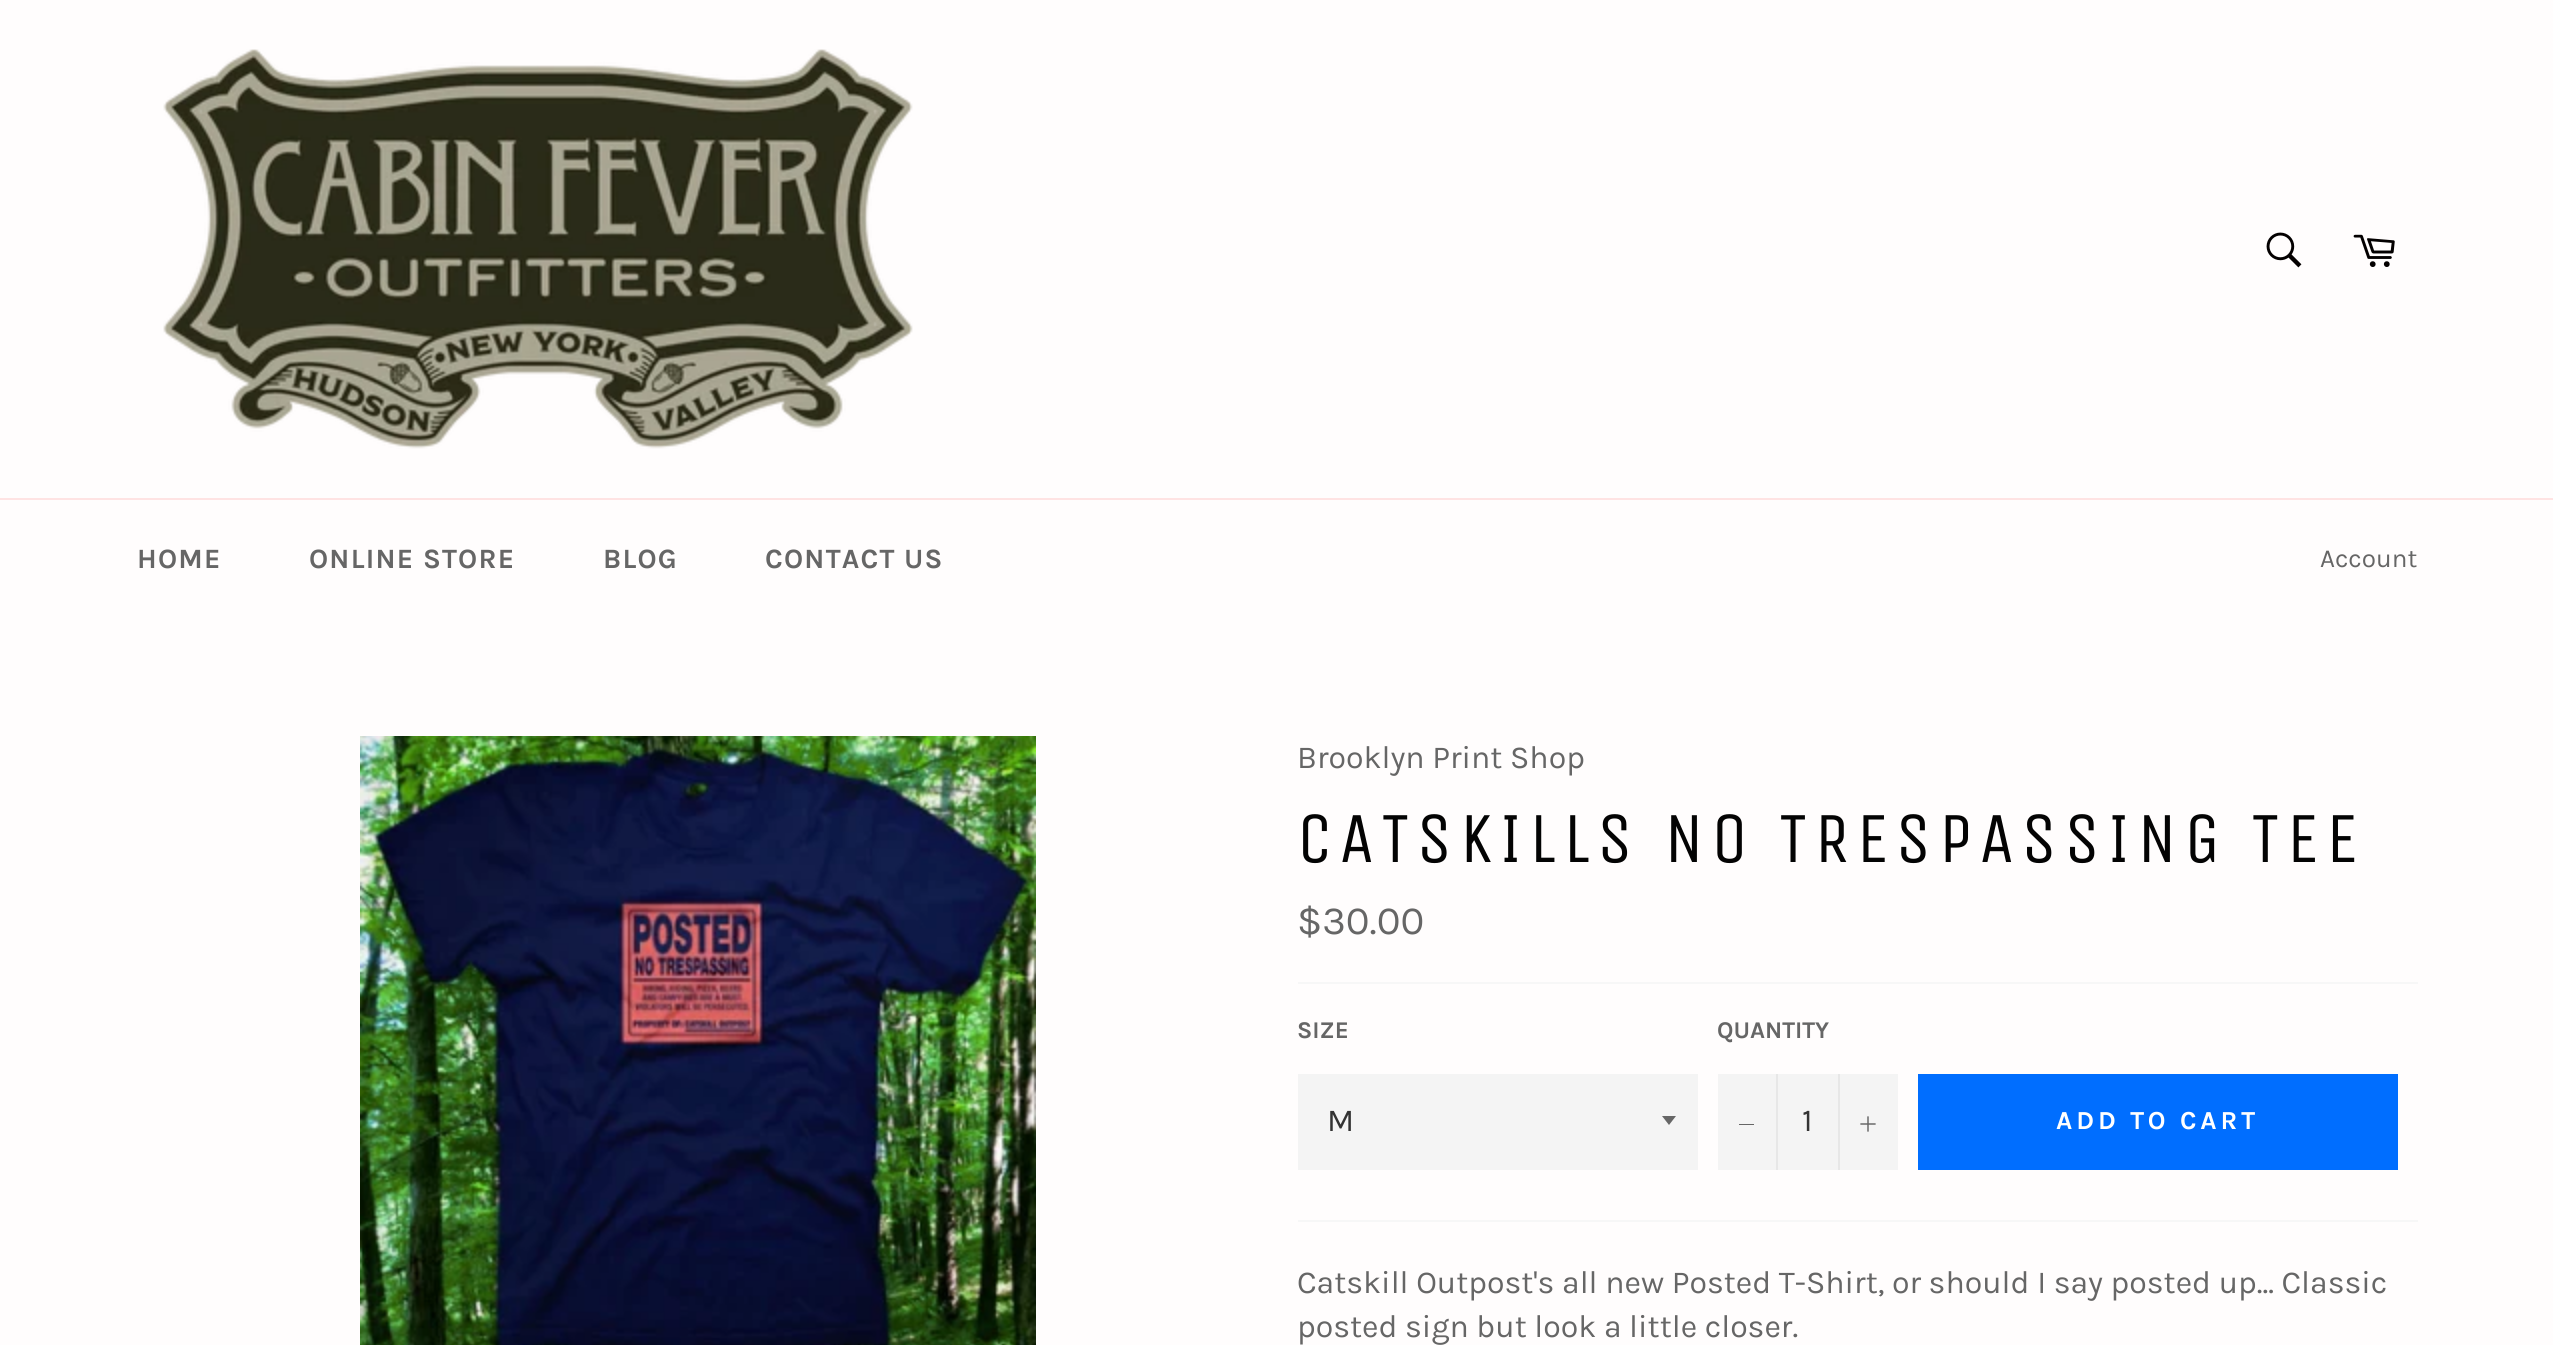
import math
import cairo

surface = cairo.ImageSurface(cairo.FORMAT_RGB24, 2553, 1345)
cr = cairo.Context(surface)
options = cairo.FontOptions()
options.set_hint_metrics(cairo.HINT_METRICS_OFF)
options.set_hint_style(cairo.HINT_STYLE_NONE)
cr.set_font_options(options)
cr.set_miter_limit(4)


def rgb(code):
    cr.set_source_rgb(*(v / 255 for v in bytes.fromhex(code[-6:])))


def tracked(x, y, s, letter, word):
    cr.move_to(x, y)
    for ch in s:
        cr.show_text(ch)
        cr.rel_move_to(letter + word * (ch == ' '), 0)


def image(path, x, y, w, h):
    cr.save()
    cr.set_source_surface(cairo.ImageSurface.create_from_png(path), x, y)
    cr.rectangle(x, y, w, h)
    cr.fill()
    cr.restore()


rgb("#fffdfd")
cr.paint()
image("img/1.png", 163, 49, 750, 400)
image("img/2.png", 2266, 232, 36, 36)
image("img/3.png", 2353, 234, 42, 33)
rgb("#ffe3e3")
cr.rectangle(0, 498, 2553, 2)
cr.fill()
image("img/4.png", 360, 736, 676, 609)
rgb("#f7f7f7")
cr.rectangle(1298, 982, 1120, 2)
cr.fill()
rgb("#f4f4f4")
cr.rectangle(1298, 1074, 400, 96)
cr.fill()
rgb("#666666")
cr.new_path()
cr.move_to(1662, 1116)
cr.line_to(1669, 1125)
cr.line_to(1676, 1116)
cr.close_path()
cr.fill()
for x, y, w, h, color in [
    (1718, 1074, 180, 96, "#f4f4f4"),
    (1776, 1074, 2, 96, "#e7e7e7"),
    (1739, 1124, 15, 1, "#666666"),
    (1838, 1074, 2, 96, "#e7e7e7"),
]:
    rgb(color)
    cr.rectangle(x, y, w, h)
    cr.fill()
image("img/5.png", 1860, 1116, 16, 16)
rgb("#006eff")
cr.rectangle(1918, 1074, 480, 96)
cr.fill()
rgb("#f7f7f7")
cr.rectangle(1298, 1220, 1120, 2)
cr.fill()
cr.select_font_face("Karla", cairo.FONT_SLANT_NORMAL, cairo.FONT_WEIGHT_BOLD)
cr.set_font_size(28)
rgb("#666666")
for x, y, s in [
    (137, 568, "HOME"),
    (309, 568, "ONLINE STORE"),
    (603, 568, "BLOG"),
    (765, 568, "CONTACT US"),
]:
    tracked(x, y, s, 1.25, 0)
cr.select_font_face("Karla")
cr.set_font_size(26)
cr.move_to(2320, 567)
cr.show_text("Account")
cr.set_font_size(32)
cr.move_to(1297, 768)
cr.show_text("Brooklyn Print Shop")
cr.select_font_face("Unica One")
cr.set_font_size(72)
rgb("#030303")
tracked(1297, 862, "CATSKILLS NO TRESPASSING TEE", 7.2, 0)
cr.select_font_face("Karla")
cr.set_font_size(40)
rgb("#666666")
cr.move_to(1297, 934)
cr.show_text("$30.00")
cr.select_font_face("Karla", cairo.FONT_SLANT_NORMAL, cairo.FONT_WEIGHT_BOLD)
cr.set_font_size(24)
cr.move_to(1297, 1038)
cr.show_text("SIZE")
cr.select_font_face("Karla")
cr.set_font_size(32)
rgb("#333333")
cr.move_to(1327, 1131)
cr.show_text("M")
cr.select_font_face("Karla", cairo.FONT_SLANT_NORMAL, cairo.FONT_WEIGHT_BOLD)
cr.set_font_size(24)
rgb("#666666")
cr.move_to(1717, 1038)
cr.show_text("QUANTITY")
cr.select_font_face("Karla")
cr.set_font_size(32)
rgb("#333333")
cr.move_to(1802, 1131)
cr.show_text("1")
cr.select_font_face("Karla", cairo.FONT_SLANT_NORMAL, cairo.FONT_WEIGHT_BOLD)
cr.set_font_size(26)
rgb("#ffffff")
tracked(2056, 1129, "ADD TO CART", 3.9, 0)
cr.select_font_face("Karla")
cr.set_font_size(32)
rgb("#666666")
cr.move_to(1297, 1293)
cr.show_text("Catskill Outpost's all new Posted T-Shirt, or should I say posted up... Classic")
cr.move_to(1297, 1337)
cr.show_text("posted sign but look a little closer.")
surface.write_to_png("page.png")
